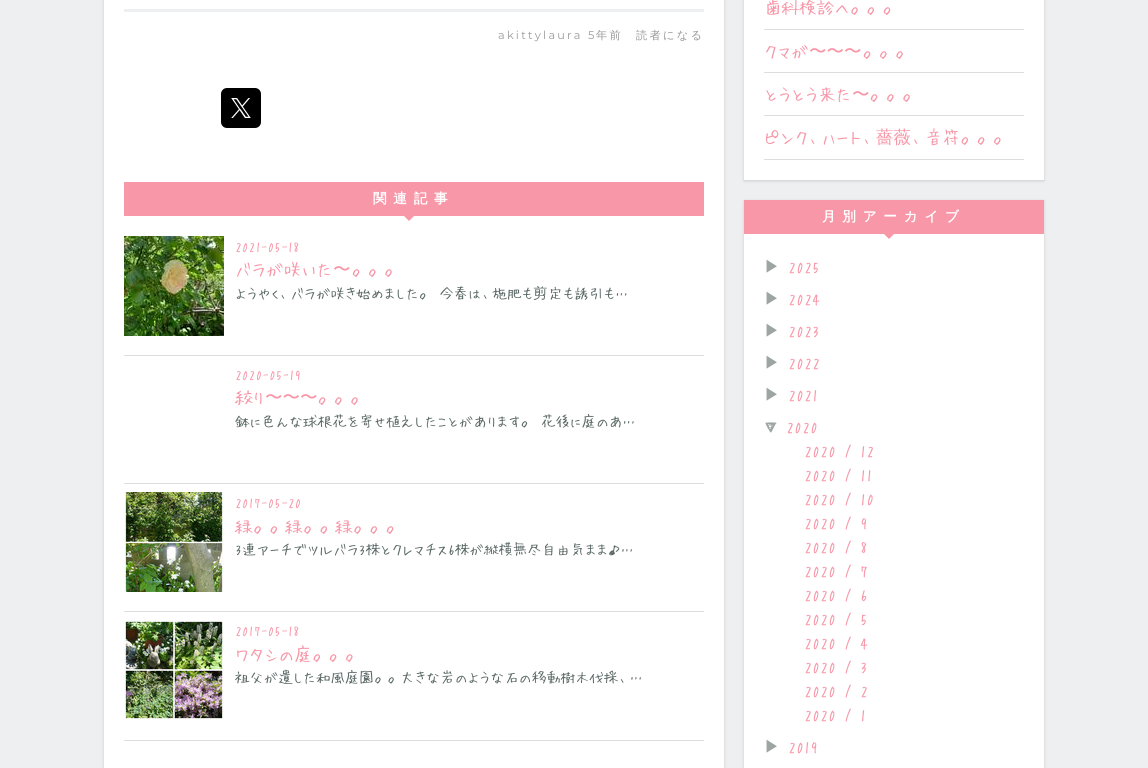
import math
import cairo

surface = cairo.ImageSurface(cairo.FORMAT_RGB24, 1148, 768)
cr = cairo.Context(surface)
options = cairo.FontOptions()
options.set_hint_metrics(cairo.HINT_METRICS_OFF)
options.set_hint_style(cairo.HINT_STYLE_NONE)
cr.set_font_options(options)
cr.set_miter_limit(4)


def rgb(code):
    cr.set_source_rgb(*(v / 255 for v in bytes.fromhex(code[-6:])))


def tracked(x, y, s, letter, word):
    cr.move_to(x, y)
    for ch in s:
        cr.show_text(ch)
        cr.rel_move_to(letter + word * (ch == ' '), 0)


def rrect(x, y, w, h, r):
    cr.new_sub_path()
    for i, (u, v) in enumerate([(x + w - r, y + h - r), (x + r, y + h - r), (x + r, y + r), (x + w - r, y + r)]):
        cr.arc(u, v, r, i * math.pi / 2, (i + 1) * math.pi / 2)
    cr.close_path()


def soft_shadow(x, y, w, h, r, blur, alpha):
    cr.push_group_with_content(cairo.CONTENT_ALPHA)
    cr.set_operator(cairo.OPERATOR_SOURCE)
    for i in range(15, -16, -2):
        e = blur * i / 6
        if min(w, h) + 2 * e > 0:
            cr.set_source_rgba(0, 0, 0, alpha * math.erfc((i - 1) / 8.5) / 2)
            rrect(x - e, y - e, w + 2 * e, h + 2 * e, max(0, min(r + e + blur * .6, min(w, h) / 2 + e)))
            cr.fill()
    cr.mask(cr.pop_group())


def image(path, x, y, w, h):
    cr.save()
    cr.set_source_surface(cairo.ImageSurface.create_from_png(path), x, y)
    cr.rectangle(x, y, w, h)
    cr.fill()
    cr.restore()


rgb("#edeff1")
cr.paint()
rgb("#000000")
soft_shadow(104, -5, 620, 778, 0, 1.5, 0.15)
rgb("#ffffff")
cr.rectangle(104, 0, 620, 768)
cr.fill()
rgb("#edeff1")
cr.rectangle(124, 9, 580, 3)
cr.fill()
rgb("#000000")
rrect(221, 88, 40, 40, 6)
cr.fill()
image("img/1.png", 231, 98, 20, 20)
rgb("#f797a8")
cr.rectangle(124, 182, 580, 34)
cr.fill()
cr.new_path()
cr.move_to(404, 216)
cr.line_to(414, 216)
cr.line_to(409, 221)
cr.close_path()
cr.fill()
rgb("#dddddd")
cr.rectangle(124, 355, 580, 1)
cr.fill()
image("img/2.png", 124, 236, 100, 100)
cr.rectangle(124, 483, 580, 1)
cr.fill()
cr.rectangle(124, 611, 580, 1)
cr.fill()
image("img/3.png", 124, 492, 100, 100)
cr.rectangle(124, 740, 580, 1)
cr.fill()
image("img/4.png", 124, 620, 100, 100)
rgb("#000000")
soft_shadow(744, -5, 300, 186, 0, 1.5, 0.15)
for x, y, w, h, color in [
    (744, 0, 300, 180, "#ffffff"),
    (764, 29, 260, 1, "#dddddd"),
    (764, 72, 260, 1, "#dddddd"),
    (764, 115, 260, 1, "#dddddd"),
    (764, 159, 260, 1, "#dddddd"),
]:
    rgb(color)
    cr.rectangle(x, y, w, h)
    cr.fill()
rgb("#000000")
soft_shadow(744, 201, 300, 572, 0, 1.5, 0.15)
rgb("#f797a8")
cr.rectangle(744, 200, 300, 34)
cr.fill()
rgb("#ffffff")
cr.rectangle(744, 234, 300, 534)
cr.fill()
rgb("#f797a8")
cr.new_path()
cr.move_to(884, 234)
cr.line_to(894, 234)
cr.line_to(889, 239)
cr.close_path()
cr.fill()
cr.select_font_face("Montserrat")
cr.set_font_size(11.25)
rgb("#999999")
tracked(498, 39, "akittylaura 5", 2.25, 0)
cr.select_font_face("WenQuanYi Zen Hei Medium")
tracked(596, 39, "年前", 2.25, 0)
tracked(636, 39, "読者になる", 2.25, 0)
cr.select_font_face("WenQuanYi Zen Hei", cairo.FONT_SLANT_NORMAL, cairo.FONT_WEIGHT_BOLD)
cr.set_font_size(13.6)
rgb("#ffffff")
tracked(373, 203, "関連記事", 6.75, 0)
cr.select_font_face("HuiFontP")
rgb("#f797a8")
cr.move_to(235, 251)
cr.show_text("2021-05-18")
cr.set_font_size(17.5)
cr.move_to(235, 275)
cr.show_text("バラが咲いた")
cr.select_font_face("WenQuanYi Zen Hei Medium")
cr.move_to(333, 275)
cr.show_text("〜")
cr.select_font_face("HuiFontP")
cr.move_to(351, 275)
cr.show_text("。。。")
cr.set_font_size(14.4)
rgb("#5b6966")
cr.move_to(235, 298)
cr.show_text("ようやく、バラが咲き始めました。 今春は、施肥も")
cr.select_font_face("WenQuanYi Zen Hei Medium")
cr.move_to(533, 298)
cr.show_text("剪")
cr.select_font_face("HuiFontP")
cr.move_to(548, 298)
cr.show_text("定も誘引も…")
cr.set_font_size(13.6)
rgb("#f797a8")
cr.move_to(235, 379)
cr.show_text("2020-05-19")
cr.set_font_size(17.5)
cr.move_to(235, 403)
cr.show_text("絞り")
cr.select_font_face("WenQuanYi Zen Hei Medium")
cr.move_to(265, 403)
cr.show_text("〜〜〜")
cr.select_font_face("HuiFontP")
cr.move_to(317, 403)
cr.show_text("。。。")
cr.set_font_size(14.4)
rgb("#5b6966")
cr.move_to(235, 426)
cr.show_text("鉢に色んな球根花を寄せ植えしたことがあります。 花後に庭のあ…")
cr.set_font_size(13.6)
rgb("#f797a8")
cr.move_to(235, 507)
cr.show_text("2017-05-20")
cr.set_font_size(17.5)
cr.move_to(235, 532)
cr.show_text("緑。。緑。。緑。。。")
cr.set_font_size(14.4)
rgb("#5b6966")
cr.move_to(235, 554)
cr.show_text("3連アーチでツルバラ3株とクレマチス6株が縦横無尽自由気まま♪…")
cr.set_font_size(13.6)
rgb("#f797a8")
cr.move_to(235, 635)
cr.show_text("2017-05-18")
cr.set_font_size(17.5)
cr.move_to(235, 660)
cr.show_text("ワタシの庭。。。")
cr.set_font_size(14.4)
rgb("#5b6966")
cr.move_to(235, 682)
cr.show_text("祖父が遺した和風庭園。。大きな岩のような石の移動樹木伐採、…")
cr.set_font_size(17.5)
rgb("#f797a8")
cr.move_to(764, 13)
cr.show_text("歯科検診へ。。。")
cr.move_to(764, 57)
cr.show_text("クマが")
cr.select_font_face("WenQuanYi Zen Hei Medium")
cr.move_to(809, 57)
cr.show_text("〜〜〜")
cr.select_font_face("HuiFontP")
cr.move_to(862, 57)
cr.show_text("。。。")
cr.move_to(764, 100)
cr.show_text("とうとう来た")
cr.select_font_face("WenQuanYi Zen Hei Medium")
cr.move_to(852, 100)
cr.show_text("〜")
cr.select_font_face("HuiFontP")
cr.move_to(869, 100)
cr.show_text("。。。")
cr.move_to(764, 143)
cr.show_text("ピンク、ハート、")
cr.select_font_face("WenQuanYi Zen Hei Medium")
cr.move_to(876, 143)
cr.show_text("薔薇")
cr.select_font_face("HuiFontP")
cr.move_to(911, 143)
cr.show_text("、音符。。。")
cr.select_font_face("WenQuanYi Zen Hei", cairo.FONT_SLANT_NORMAL, cairo.FONT_WEIGHT_BOLD)
cr.set_font_size(13.6)
rgb("#ffffff")
tracked(822, 221, "月別アーカイブ", 6.75, 0)
cr.select_font_face("WenQuanYi Zen Hei Medium")
cr.set_font_size(16)
rgb("#9da5a3")
cr.move_to(764, 272)
cr.show_text("▶")
cr.select_font_face("HuiFontP")
rgb("#f797a8")
cr.move_to(788, 272)
cr.show_text("2025")
cr.select_font_face("WenQuanYi Zen Hei Medium")
rgb("#9da5a3")
cr.move_to(764, 304)
cr.show_text("▶")
cr.select_font_face("HuiFontP")
rgb("#f797a8")
cr.move_to(788, 304)
cr.show_text("2024")
cr.select_font_face("WenQuanYi Zen Hei Medium")
rgb("#9da5a3")
cr.move_to(764, 336)
cr.show_text("▶")
cr.select_font_face("HuiFontP")
rgb("#f797a8")
cr.move_to(788, 336)
cr.show_text("2023")
cr.select_font_face("WenQuanYi Zen Hei Medium")
rgb("#9da5a3")
cr.move_to(764, 368)
cr.show_text("▶")
cr.select_font_face("HuiFontP")
rgb("#f797a8")
cr.move_to(788, 368)
cr.show_text("2022")
cr.select_font_face("WenQuanYi Zen Hei Medium")
rgb("#9da5a3")
cr.move_to(764, 400)
cr.show_text("▶")
cr.select_font_face("HuiFontP")
rgb("#f797a8")
cr.move_to(788, 400)
cr.show_text("2021")
rgb("#9da5a3")
cr.move_to(764, 432)
cr.show_text("▼")
rgb("#f797a8")
for x, y, s in [
    (786, 432, "2020"),
    (804, 456, "2020 / 12"),
    (804, 480, "2020 / 11"),
    (804, 504, "2020 / 10"),
    (804, 528, "2020 / 9"),
    (804, 552, "2020 / 8"),
    (804, 576, "2020 / 7"),
    (804, 600, "2020 / 6"),
    (804, 624, "2020 / 5"),
    (804, 648, "2020 / 4"),
    (804, 672, "2020 / 3"),
    (804, 696, "2020 / 2"),
    (804, 720, "2020 / 1"),
]:
    cr.move_to(x, y)
    cr.show_text(s)
cr.select_font_face("WenQuanYi Zen Hei Medium")
rgb("#9da5a3")
cr.move_to(764, 752)
cr.show_text("▶")
cr.select_font_face("HuiFontP")
rgb("#f797a8")
cr.move_to(788, 752)
cr.show_text("2019")
surface.write_to_png("page.png")
